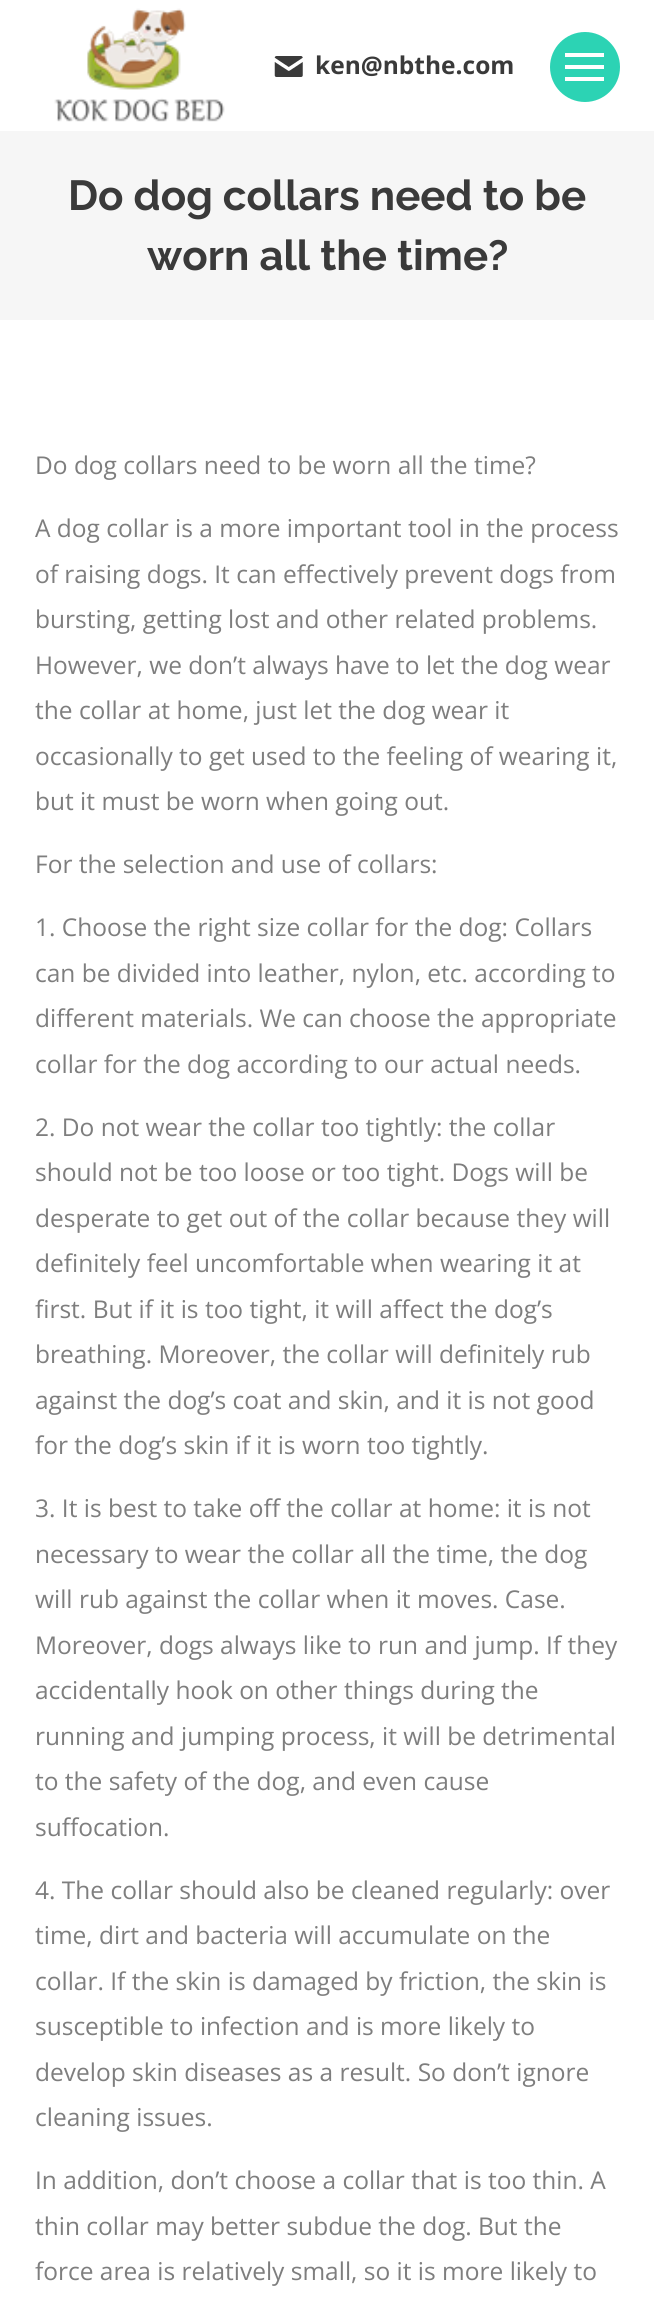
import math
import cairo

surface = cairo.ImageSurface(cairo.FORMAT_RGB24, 654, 2297)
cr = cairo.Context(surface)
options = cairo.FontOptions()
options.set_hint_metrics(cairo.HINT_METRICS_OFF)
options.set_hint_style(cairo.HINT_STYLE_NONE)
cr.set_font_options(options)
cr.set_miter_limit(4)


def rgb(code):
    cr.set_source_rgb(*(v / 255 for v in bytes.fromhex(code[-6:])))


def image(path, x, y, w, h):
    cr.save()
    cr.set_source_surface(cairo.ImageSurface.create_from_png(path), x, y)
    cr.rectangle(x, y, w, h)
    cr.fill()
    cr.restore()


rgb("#ffffff")
cr.paint()
image("img/1.png", 54, 8, 171, 114)
image("img/2.png", 274, 56, 29, 21)
rgb("#2cd3b4")
cr.arc(585, 67, 35, 0, 2 * math.pi)
cr.fill()
for x, y, w, h, color in [
    (565, 53, 39, 4, "#ffffff"),
    (565, 65, 39, 4, "#ffffff"),
    (565, 77, 39, 4, "#ffffff"),
    (0, 131, 654, 189, "#f6f6f6"),
]:
    rgb(color)
    cr.rectangle(x, y, w, h)
    cr.fill()
cr.select_font_face("Open Sans", cairo.FONT_SLANT_NORMAL, cairo.FONT_WEIGHT_BOLD)
cr.set_font_size(24.5)
rgb("#3a3a3a")
cr.move_to(315, 74)
cr.show_text("ken@nbthe.com")
cr.select_font_face("Raleway", cairo.FONT_SLANT_NORMAL, cairo.FONT_WEIGHT_BOLD)
cr.set_font_size(42)
cr.move_to(68, 210)
cr.show_text("Do dog collars need to be")
cr.move_to(147, 270)
cr.show_text("worn all the time?")
cr.select_font_face("Open Sans")
cr.set_font_size(24.5)
rgb("#7e7e7e")
for x, y, s in [
    (35, 474, "Do dog collars need to be worn all the time?"),
    (35, 537, "A dog collar is a more important tool in the process"),
    (35, 583, "of raising dogs. It can effectively prevent dogs from"),
    (35, 628, "bursting, getting lost and other related problems."),
    (35, 674, "However, we don’t always have to let the dog wear"),
    (35, 719, "the collar at home, just let the dog wear it"),
    (35, 765, "occasionally to get used to the feeling of wearing it,"),
    (35, 810, "but it must be worn when going out."),
    (35, 873, "For the selection and use of collars:"),
    (35, 936, "1. Choose the right size collar for the dog: Collars"),
    (35, 982, "can be divided into leather, nylon, etc. according to"),
    (35, 1027, "different materials. We can choose the appropriate"),
    (35, 1073, "collar for the dog according to our actual needs."),
    (35, 1136, "2. Do not wear the collar too tightly: the collar"),
    (35, 1181, "should not be too loose or too tight. Dogs will be"),
    (35, 1227, "desperate to get out of the collar because they will"),
    (35, 1272, "definitely feel uncomfortable when wearing it at"),
    (35, 1318, "first. But if it is too tight, it will affect the dog’s"),
    (35, 1363, "breathing. Moreover, the collar will definitely rub"),
    (35, 1409, "against the dog’s coat and skin, and it is not good"),
    (35, 1454, "for the dog’s skin if it is worn too tightly."),
    (35, 1517, "3. It is best to take off the collar at home: it is not"),
    (35, 1563, "necessary to wear the collar all the time, the dog"),
    (35, 1608, "will rub against the collar when it moves. Case."),
    (35, 1654, "Moreover, dogs always like to run and jump. If they"),
    (35, 1699, "accidentally hook on other things during the"),
    (35, 1745, "running and jumping process, it will be detrimental"),
    (35, 1790, "to the safety of the dog, and even cause"),
    (35, 1836, "suffocation."),
    (35, 1899, "4. The collar should also be cleaned regularly: over"),
    (35, 1944, "time, dirt and bacteria will accumulate on the"),
    (35, 1990, "collar. If the skin is damaged by friction, the skin is"),
    (35, 2035, "susceptible to infection and is more likely to"),
    (35, 2081, "develop skin diseases as a result. So don’t ignore"),
    (35, 2126, "cleaning issues."),
    (35, 2189, "In addition, don’t choose a collar that is too thin. A"),
    (35, 2235, "thin collar may better subdue the dog. But the"),
    (35, 2280, "force area is relatively small, so it is more likely to"),
]:
    cr.move_to(x, y)
    cr.show_text(s)
surface.write_to_png("page.png")
